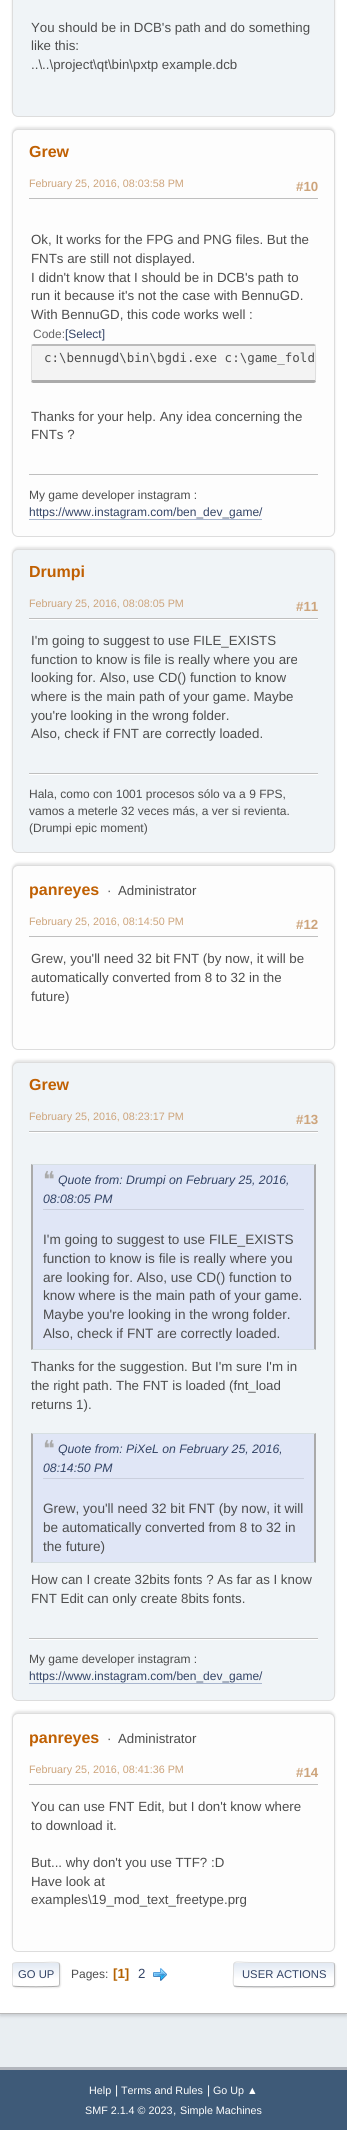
import math
import cairo

surface = cairo.ImageSurface(cairo.FORMAT_RGB24, 347, 2130)
cr = cairo.Context(surface)
options = cairo.FontOptions()
options.set_hint_metrics(cairo.HINT_METRICS_OFF)
options.set_hint_style(cairo.HINT_STYLE_NONE)
cr.set_font_options(options)
cr.set_miter_limit(4)


def rgb(code):
    cr.set_source_rgb(*(v / 255 for v in bytes.fromhex(code[-6:])))


def rrect(x, y, w, h, r):
    cr.new_sub_path()
    for i, (u, v) in enumerate([(x + w - r, y + h - r), (x + r, y + h - r), (x + r, y + r), (x + w - r, y + r)]):
        cr.arc(u, v, r, i * math.pi / 2, (i + 1) * math.pi / 2)
    cr.close_path()


def soft_shadow(x, y, w, h, r, blur, alpha):
    cr.push_group_with_content(cairo.CONTENT_ALPHA)
    cr.set_operator(cairo.OPERATOR_SOURCE)
    for i in range(15, -16, -2):
        e = blur * i / 6
        if min(w, h) + 2 * e > 0:
            cr.set_source_rgba(0, 0, 0, alpha * math.erfc((i - 1) / 8.5) / 2)
            rrect(x - e, y - e, w + 2 * e, h + 2 * e, max(0, min(r + e + blur * .6, min(w, h) / 2 + e)))
            cr.fill()
    cr.mask(cr.pop_group())


def image(path, x, y, w, h):
    cr.save()
    cr.set_source_surface(cairo.ImageSurface.create_from_png(path), x, y)
    cr.rectangle(x, y, w, h)
    cr.fill()
    cr.restore()


rgb("#e9eef2")
cr.paint()
rgb("#000000")
soft_shadow(0, -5, 347, 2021, 0, 1.5, 0.14)
rgb("#ffffff")
cr.rectangle(0, 0, 347, 2013)
cr.fill()
rgb("#b8b8b8")
cr.rectangle(0, 2013, 347, 1)
cr.fill()
rgb("#000000")
soft_shadow(12, -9, 323, 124, 6, 1, 0.1)
rgb("#f0f4f7")
rrect(12.5, -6.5, 322, 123, 5.5)
cr.fill_preserve()
rgb("#dddddd")
cr.set_line_width(1)
cr.stroke()
rgb("#000000")
soft_shadow(12, 127, 323, 408, 6, 1, 0.1)
rgb("#fdfdfd")
rrect(12.5, 129.5, 322, 407, 5.5)
cr.fill_preserve()
rgb("#dddddd")
cr.stroke()
rgb("#bfbfbf")
cr.rectangle(29, 198, 289, 1)
cr.fill()
rgb("#f3f3f3")
cr.new_path()
cr.move_to(33, 346)
cr.line_to(315, 346)
cr.line_to(315, 380)
cr.line_to(32, 380)
cr.line_to(32, 346)
cr.close_path()
cr.fill()
rgb("#bbbbbb")
cr.new_path()
cr.move_to(33, 344)
cr.line_to(31, 345)
cr.line_to(32, 346)
cr.line_to(315, 346)
cr.line_to(316, 345)
cr.line_to(314, 344)
cr.close_path()
cr.fill()
rgb("#dfdfdf")
cr.new_path()
cr.move_to(316, 381)
cr.curve_to(316, 377, 316.5, 346, 315.5, 345)
cr.line_to(315, 346)
cr.line_to(315, 380)
cr.line_to(315.5, 382)
cr.close_path()
cr.fill()
rgb("#aaaaaa")
cr.new_path()
cr.move_to(33, 383)
cr.line_to(314, 383)
cr.line_to(316, 382)
cr.line_to(315, 380)
cr.line_to(32, 380)
cr.line_to(31, 382)
cr.close_path()
cr.fill()
rgb("#dfdfdf")
cr.new_path()
cr.move_to(31, 346)
cr.line_to(31, 381)
cr.line_to(31.5, 382)
cr.line_to(32, 380)
cr.line_to(32, 346)
cr.line_to(31.5, 345)
cr.close_path()
cr.fill()
rgb("#bfbfbf")
cr.rectangle(29, 474, 289, 1)
cr.fill()
rgb("#a8b6cf")
cr.rectangle(29, 519, 233, 1)
cr.fill()
rgb("#000000")
soft_shadow(12, 547, 323, 304, 6, 1, 0.1)
rgb("#f0f4f7")
rrect(12.5, 549.5, 322, 303, 5.5)
cr.fill_preserve()
rgb("#dddddd")
cr.stroke()
for x, y, w, h, color in [
    (29, 619, 289, 1, "#ffffff"),
    (29, 618, 289, 1, "#bfbfbf"),
    (29, 774, 289, 1, "#ffffff"),
    (29, 773, 289, 1, "#bfbfbf"),
]:
    rgb(color)
    cr.rectangle(x, y, w, h)
    cr.fill()
rgb("#000000")
soft_shadow(12, 863, 323, 185, 6, 1, 0.1)
rgb("#fdfdfd")
rrect(12.5, 865.5, 322, 184, 5.5)
cr.fill_preserve()
rgb("#dddddd")
cr.stroke()
rgb("#bfbfbf")
cr.rectangle(29, 936, 289, 1)
cr.fill()
rgb("#000000")
soft_shadow(12, 1060, 323, 639, 6, 1, 0.1)
rgb("#f0f4f7")
rrect(12.5, 1062.5, 322, 638, 5.5)
cr.fill_preserve()
rgb("#dddddd")
cr.stroke()
for x, y, w, h, color in [
    (29, 1132, 289, 1, "#ffffff"),
    (29, 1131, 289, 1, "#bfbfbf"),
    (33, 1165, 281, 184, "#e0e6f6"),
]:
    rgb(color)
    cr.rectangle(x, y, w, h)
    cr.fill()
rgb("#d6dfe2")
cr.new_path()
cr.move_to(31, 1164)
cr.line_to(316, 1164)
cr.line_to(314, 1165)
cr.line_to(33, 1165)
cr.close_path()
cr.fill()
rgb("#aaaaaa")
cr.new_path()
cr.move_to(316, 1164)
cr.line_to(316, 1350)
cr.line_to(314, 1349)
cr.line_to(314, 1165)
cr.close_path()
cr.fill()
rgb("#d6dfe2")
cr.new_path()
cr.move_to(316, 1350)
cr.line_to(31, 1350)
cr.line_to(33, 1349)
cr.line_to(314, 1349)
cr.close_path()
cr.fill()
rgb("#aaaaaa")
cr.new_path()
cr.move_to(31, 1350)
cr.line_to(31, 1164)
cr.line_to(33, 1165)
cr.line_to(33, 1349)
cr.close_path()
cr.fill()
rgb("#cacfdd")
cr.rectangle(43, 1209, 261, 1)
cr.fill()
rgb("#e0e6f6")
cr.rectangle(33, 1434, 281, 128)
cr.fill()
rgb("#d6dfe2")
cr.new_path()
cr.move_to(31, 1433)
cr.line_to(316, 1433)
cr.line_to(314, 1434)
cr.line_to(33, 1434)
cr.close_path()
cr.fill()
rgb("#aaaaaa")
cr.new_path()
cr.move_to(316, 1433)
cr.line_to(316, 1563)
cr.line_to(314, 1562)
cr.line_to(314, 1434)
cr.close_path()
cr.fill()
rgb("#d6dfe2")
cr.new_path()
cr.move_to(316, 1563)
cr.line_to(31, 1563)
cr.line_to(33, 1562)
cr.line_to(314, 1562)
cr.close_path()
cr.fill()
rgb("#aaaaaa")
cr.new_path()
cr.move_to(31, 1563)
cr.line_to(31, 1433)
cr.line_to(33, 1434)
cr.line_to(33, 1562)
cr.close_path()
cr.fill()
for x, y, w, h, color in [
    (43, 1478, 261, 1, "#cacfdd"),
    (29, 1639, 289, 1, "#ffffff"),
    (29, 1638, 289, 1, "#bfbfbf"),
    (29, 1683, 233, 1, "#a8b6cf"),
]:
    rgb(color)
    cr.rectangle(x, y, w, h)
    cr.fill()
rgb("#000000")
soft_shadow(12, 1711, 323, 239, 6, 1, 0.1)
rgb("#fdfdfd")
rrect(12.5, 1713.5, 322, 238, 5.5)
cr.fill_preserve()
rgb("#dddddd")
cr.stroke()
rgb("#bfbfbf")
cr.rectangle(29, 1784, 289, 1)
cr.fill()
rgb("#dddddd")
soft_shadow(13, 1963, 48, 25, 3, 0.5, 0.57)
rgb("#ffffff")
rrect(12, 1962, 48, 25, 3)
cr.fill()
cr.save()
rrect(12, 1962, 48, 25, 3)
cr.clip()
gradient = cairo.LinearGradient(36, 1963, 36, 1986)
gradient.add_color_stop_rgba(0, 0.886, 0.914, 0.953, 1)
gradient.add_color_stop_rgba(0.7, 1, 1, 1, 1)
cr.set_source(gradient)
cr.rectangle(12, 1963, 48, 23)
cr.fill()
cr.restore()
cr.new_path()
cr.move_to(59, 1963)
cr.curve_to(59, 1963.5, 59.5, 1964.5, 59.5, 1965)
cr.line_to(59.5, 1984)
cr.curve_to(59.5, 1984.5, 59, 1985.5, 59, 1986)
rgb("#bbbbbb")
cr.stroke()
cr.new_path()
cr.move_to(59, 1986)
cr.curve_to(57.5, 1987, 14.5, 1987, 13, 1986)
rgb("#aaaaaa")
cr.stroke()
cr.save()
cr.rectangle(12, 1957, 323, 35)
cr.clip()
cr.new_path()
cr.move_to(13, 1986)
cr.curve_to(11.5, 1984, 12.5, 1977, 12.5, 1974.5)
cr.curve_to(12.5, 1962, 10, 1962.5, 22, 1962.5)
cr.line_to(43, 1962.5)
cr.curve_to(45.5, 1962.5, 57, 1961.5, 59, 1963)
rgb("#dddddd")
cr.stroke()
cr.restore()
image("img/1.png", 153, 1968, 14, 13)
cr.save()
cr.set_fill_rule(cairo.FILL_RULE_EVEN_ODD)
cr.new_path()
cr.move_to(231, 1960)
cr.line_to(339, 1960)
cr.line_to(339, 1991)
cr.line_to(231, 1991)
cr.close_path()
cr.move_to(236, 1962)
cr.line_to(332, 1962)
cr.curve_to(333.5, 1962, 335, 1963.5, 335, 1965)
cr.line_to(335, 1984)
cr.curve_to(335, 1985.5, 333.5, 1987, 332, 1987)
cr.line_to(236, 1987)
cr.curve_to(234.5, 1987, 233, 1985.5, 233, 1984)
cr.line_to(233, 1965)
cr.curve_to(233, 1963.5, 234.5, 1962, 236, 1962)
cr.close_path()
cr.clip()
rgb("#dddddd")
soft_shadow(234, 1963, 102, 25, 3, 0.5, 0.57)
cr.restore()
rgb("#ffffff")
rrect(233, 1962, 102, 25, 3)
cr.fill()
cr.save()
rrect(233, 1962, 102, 25, 3)
cr.clip()
gradient = cairo.LinearGradient(284, 1963, 284, 1986)
gradient.add_color_stop_rgba(0, 0.886, 0.914, 0.953, 1)
gradient.add_color_stop_rgba(0.7, 1, 1, 1, 1)
cr.set_source(gradient)
cr.rectangle(233, 1963, 102, 23)
cr.fill()
gradient = cairo.LinearGradient(284, 1986, 284, 2009)
gradient.add_color_stop_rgba(0, 0.886, 0.914, 0.953, 1)
gradient.add_color_stop_rgba(0.7, 1, 1, 1, 1)
cr.set_source(gradient)
cr.rectangle(233, 1986, 102, 1)
cr.fill()
cr.restore()
cr.new_path()
cr.move_to(334, 1963)
cr.curve_to(334, 1963.5, 334.5, 1964.5, 334.5, 1965)
cr.line_to(334.5, 1984)
cr.curve_to(334.5, 1984.5, 334, 1985.5, 334, 1986)
rgb("#bbbbbb")
cr.stroke()
cr.new_path()
cr.move_to(334, 1986)
cr.line_to(332, 1986.5)
cr.line_to(316, 1986.5)
cr.curve_to(307.5, 1986.5, 236.5, 1987.5, 234.5, 1986)
cr.line_to(234, 1986)
rgb("#aaaaaa")
cr.stroke()
cr.new_path()
cr.move_to(234, 1986)
cr.curve_to(232.5, 1984, 233.5, 1977, 233.5, 1974.5)
cr.curve_to(233.5, 1958, 232, 1962.5, 252, 1962.5)
cr.line_to(332, 1962.5)
cr.line_to(334, 1963)
rgb("#dddddd")
cr.stroke()
rgb("#3e5a78")
cr.rectangle(0, 2070, 347, 60)
cr.fill()
rgb("#b2b6bd")
cr.rectangle(0, 2067, 347, 3)
cr.fill()
cr.select_font_face("Liberation Sans")
cr.set_font_size(13.3)
rgb("#4d4d4d")
for x, y, s in [
    (31, 32, "You should be in DCB's path and do something"),
    (31, 50, "like this:"),
    (31, 69, "..\\..\\project\\qt\\bin\\pxtp example.dcb"),
]:
    cr.move_to(x, y)
    cr.show_text(s)
cr.select_font_face("Liberation Sans", cairo.FONT_SLANT_NORMAL, cairo.FONT_WEIGHT_BOLD)
cr.set_font_size(16)
rgb("#c06002")
cr.move_to(29, 157)
cr.show_text("Grew")
cr.select_font_face("Liberation Sans")
cr.set_font_size(10.75)
rgb("#cda47b")
cr.move_to(29, 187)
cr.show_text("February 25, 2016, 08:03:58 PM")
cr.select_font_face("Liberation Sans", cairo.FONT_SLANT_NORMAL, cairo.FONT_WEIGHT_BOLD)
cr.set_font_size(13.3)
cr.move_to(296, 191)
cr.show_text("#10")
cr.select_font_face("Liberation Sans")
rgb("#4d4d4d")
for x, y, s in [
    (31, 244, "Ok, It works for the FPG and PNG files. But the"),
    (31, 263, "FNTs are still not displayed."),
    (31, 282, "I didn't know that I should be in DCB's path to"),
    (31, 300, "run it because it's not the case with BennuGD."),
    (31, 319, "With BennuGD, this code works well :"),
]:
    cr.move_to(x, y)
    cr.show_text(s)
cr.set_font_size(12)
rgb("#666666")
cr.move_to(33, 338)
cr.show_text("Code:")
rgb("#334466")
cr.move_to(65, 338)
cr.show_text("[Select]")
cr.select_font_face("DejaVu Sans Mono")
cr.set_font_size(12.5)
rgb("#4d4d4d")
cr.move_to(44, 362)
cr.show_text("c:\\bennugd\\bin\\bgdi.exe c:\\game_fold")
cr.select_font_face("Liberation Sans")
cr.set_font_size(13.3)
cr.move_to(31, 421)
cr.show_text("Thanks for your help. Any idea concerning the")
cr.move_to(31, 439)
cr.show_text("FNTs ?")
cr.set_font_size(12)
cr.move_to(29, 499)
cr.show_text("My game developer instagram :")
rgb("#334466")
cr.move_to(29, 516)
cr.show_text("https://www.instagram.com/ben_dev_game/")
cr.select_font_face("Liberation Sans", cairo.FONT_SLANT_NORMAL, cairo.FONT_WEIGHT_BOLD)
cr.set_font_size(16)
rgb("#c06002")
cr.move_to(29, 577)
cr.show_text("Drumpi")
cr.select_font_face("Liberation Sans")
cr.set_font_size(10.75)
rgb("#cda47b")
cr.move_to(29, 607)
cr.show_text("February 25, 2016, 08:08:05 PM")
cr.select_font_face("Liberation Sans", cairo.FONT_SLANT_NORMAL, cairo.FONT_WEIGHT_BOLD)
cr.set_font_size(13.3)
cr.move_to(296, 611)
cr.show_text("#11")
cr.select_font_face("Liberation Sans")
rgb("#4d4d4d")
for x, y, s in [
    (31, 645, "I'm going to suggest to use FILE_EXISTS"),
    (31, 664, "function to know is file is really where you are"),
    (31, 682, "looking for. Also, use CD() function to know"),
    (31, 701, "where is the main path of your game. Maybe"),
    (31, 720, "you're looking in the wrong folder."),
    (31, 738, "Also, check if FNT are correctly loaded."),
]:
    cr.move_to(x, y)
    cr.show_text(s)
cr.set_font_size(12)
for x, y, s in [
    (29, 798, "Hala, como con 1001 procesos sólo va a 9 FPS,"),
    (29, 815, "vamos a meterle 32 veces más, a ver si revienta."),
    (29, 832, "(Drumpi epic moment)"),
]:
    cr.move_to(x, y)
    cr.show_text(s)
cr.select_font_face("Liberation Sans", cairo.FONT_SLANT_NORMAL, cairo.FONT_WEIGHT_BOLD)
cr.set_font_size(16)
rgb("#c06002")
cr.move_to(29, 895)
cr.show_text("panreyes")
cr.select_font_face("Liberation Sans")
cr.set_font_size(13.3)
rgb("#4d4d4d")
cr.move_to(107, 895)
cr.show_text("·")
cr.move_to(118, 895)
cr.show_text("Administrator")
cr.set_font_size(10.75)
rgb("#cda47b")
cr.move_to(29, 925)
cr.show_text("February 25, 2016, 08:14:50 PM")
cr.select_font_face("Liberation Sans", cairo.FONT_SLANT_NORMAL, cairo.FONT_WEIGHT_BOLD)
cr.set_font_size(13.3)
cr.move_to(296, 929)
cr.show_text("#12")
cr.select_font_face("Liberation Sans")
rgb("#4d4d4d")
for x, y, s in [
    (31, 963, "Grew, you'll need 32 bit FNT (by now, it will be"),
    (31, 982, "automatically converted from 8 to 32 in the"),
    (31, 1001, "future)"),
]:
    cr.move_to(x, y)
    cr.show_text(s)
cr.select_font_face("Liberation Sans", cairo.FONT_SLANT_NORMAL, cairo.FONT_WEIGHT_BOLD)
cr.set_font_size(16)
rgb("#c06002")
cr.move_to(29, 1090)
cr.show_text("Grew")
cr.select_font_face("Liberation Sans")
cr.set_font_size(10.75)
rgb("#cda47b")
cr.move_to(29, 1120)
cr.show_text("February 25, 2016, 08:23:17 PM")
cr.select_font_face("Liberation Sans", cairo.FONT_SLANT_NORMAL, cairo.FONT_WEIGHT_BOLD)
cr.set_font_size(13.3)
cr.move_to(296, 1124)
cr.show_text("#13")
cr.select_font_face("DejaVu Sans")
cr.set_font_size(22)
rgb("#aaaaaa")
cr.move_to(43, 1187)
cr.show_text("❝")
cr.select_font_face("Liberation Sans", cairo.FONT_SLANT_ITALIC)
cr.set_font_size(12.25)
rgb("#334466")
cr.move_to(58, 1184)
cr.show_text("Quote from: Drumpi on February 25, 2016,")
cr.move_to(43, 1203)
cr.show_text("08:08:05 PM")
cr.select_font_face("Liberation Sans")
cr.set_font_size(13.6)
rgb("#4d4d4d")
for x, y, s in [
    (43, 1244, "I'm going to suggest to use FILE_EXISTS"),
    (43, 1263, "function to know is file is really where you"),
    (43, 1282, "are looking for. Also, use CD() function to"),
    (43, 1300, "know where is the main path of your game."),
    (43, 1319, "Maybe you're looking in the wrong folder."),
    (43, 1338, "Also, check if FNT are correctly loaded."),
]:
    cr.move_to(x, y)
    cr.show_text(s)
cr.set_font_size(13.3)
for x, y, s in [
    (31, 1371, "Thanks for the suggestion. But I'm sure I'm in"),
    (31, 1390, "the right path. The FNT is loaded (fnt_load"),
    (31, 1409, "returns 1)."),
]:
    cr.move_to(x, y)
    cr.show_text(s)
cr.select_font_face("DejaVu Sans")
cr.set_font_size(22)
rgb("#aaaaaa")
cr.move_to(43, 1456)
cr.show_text("❝")
cr.select_font_face("Liberation Sans", cairo.FONT_SLANT_ITALIC)
cr.set_font_size(12.25)
rgb("#334466")
cr.move_to(58, 1453)
cr.show_text("Quote from: PiXeL on February 25, 2016,")
cr.move_to(43, 1472)
cr.show_text("08:14:50 PM")
cr.select_font_face("Liberation Sans")
cr.set_font_size(13.6)
rgb("#4d4d4d")
for x, y, s in [
    (43, 1513, "Grew, you'll need 32 bit FNT (by now, it will"),
    (43, 1532, "be automatically converted from 8 to 32 in"),
    (43, 1551, "the future)"),
]:
    cr.move_to(x, y)
    cr.show_text(s)
cr.set_font_size(13.3)
cr.move_to(31, 1584)
cr.show_text("How can I create 32bits fonts ? As far as I know")
cr.move_to(31, 1603)
cr.show_text("FNT Edit can only create 8bits fonts.")
cr.set_font_size(12)
cr.move_to(29, 1663)
cr.show_text("My game developer instagram :")
rgb("#334466")
cr.move_to(29, 1680)
cr.show_text("https://www.instagram.com/ben_dev_game/")
cr.select_font_face("Liberation Sans", cairo.FONT_SLANT_NORMAL, cairo.FONT_WEIGHT_BOLD)
cr.set_font_size(16)
rgb("#c06002")
cr.move_to(29, 1743)
cr.show_text("panreyes")
cr.select_font_face("Liberation Sans")
cr.set_font_size(13.3)
rgb("#4d4d4d")
cr.move_to(107, 1743)
cr.show_text("·")
cr.move_to(118, 1743)
cr.show_text("Administrator")
cr.set_font_size(10.75)
rgb("#cda47b")
cr.move_to(29, 1773)
cr.show_text("February 25, 2016, 08:41:36 PM")
cr.select_font_face("Liberation Sans", cairo.FONT_SLANT_NORMAL, cairo.FONT_WEIGHT_BOLD)
cr.set_font_size(13.3)
cr.move_to(296, 1777)
cr.show_text("#14")
cr.select_font_face("Liberation Sans")
rgb("#4d4d4d")
for x, y, s in [
    (31, 1811, "You can use FNT Edit, but I don't know where"),
    (31, 1830, "to download it."),
    (31, 1867, "But... why don't you use TTF? :D"),
    (31, 1886, "Have look at"),
    (31, 1904, "examples\\19_mod_text_freetype.prg"),
]:
    cr.move_to(x, y)
    cr.show_text(s)
cr.set_font_size(11.25)
rgb("#334466")
cr.move_to(18, 1978)
cr.show_text("GO UP")
cr.set_font_size(12)
rgb("#4d4d4d")
cr.move_to(71, 1978)
cr.show_text("Pages:")
cr.select_font_face("Liberation Sans", cairo.FONT_SLANT_NORMAL, cairo.FONT_WEIGHT_BOLD)
cr.set_font_size(13.3)
rgb("#b46100")
cr.move_to(113, 1978)
cr.show_text("[1]")
cr.select_font_face("Liberation Sans")
rgb("#334466")
cr.move_to(138, 1978)
cr.show_text("2")
cr.set_font_size(11.25)
cr.move_to(242, 1978)
cr.show_text("USER ACTIONS")
cr.set_font_size(10.75)
rgb("#ffffff")
cr.move_to(89, 2094)
cr.show_text("Help")
cr.set_font_size(12)
cr.move_to(115, 2094)
cr.show_text("|")
cr.set_font_size(10.75)
cr.move_to(121, 2094)
cr.show_text("Terms and Rules")
cr.set_font_size(12)
cr.move_to(207, 2094)
cr.show_text("|")
cr.set_font_size(10.75)
cr.move_to(213, 2094)
cr.show_text("Go Up ▲")
cr.move_to(85, 2114)
cr.show_text("SMF 2.1.4 © 2023")
cr.set_font_size(12)
cr.move_to(173, 2114)
cr.show_text(",")
cr.set_font_size(10.75)
cr.move_to(180, 2114)
cr.show_text("Simple Machines")
surface.write_to_png("page.png")
